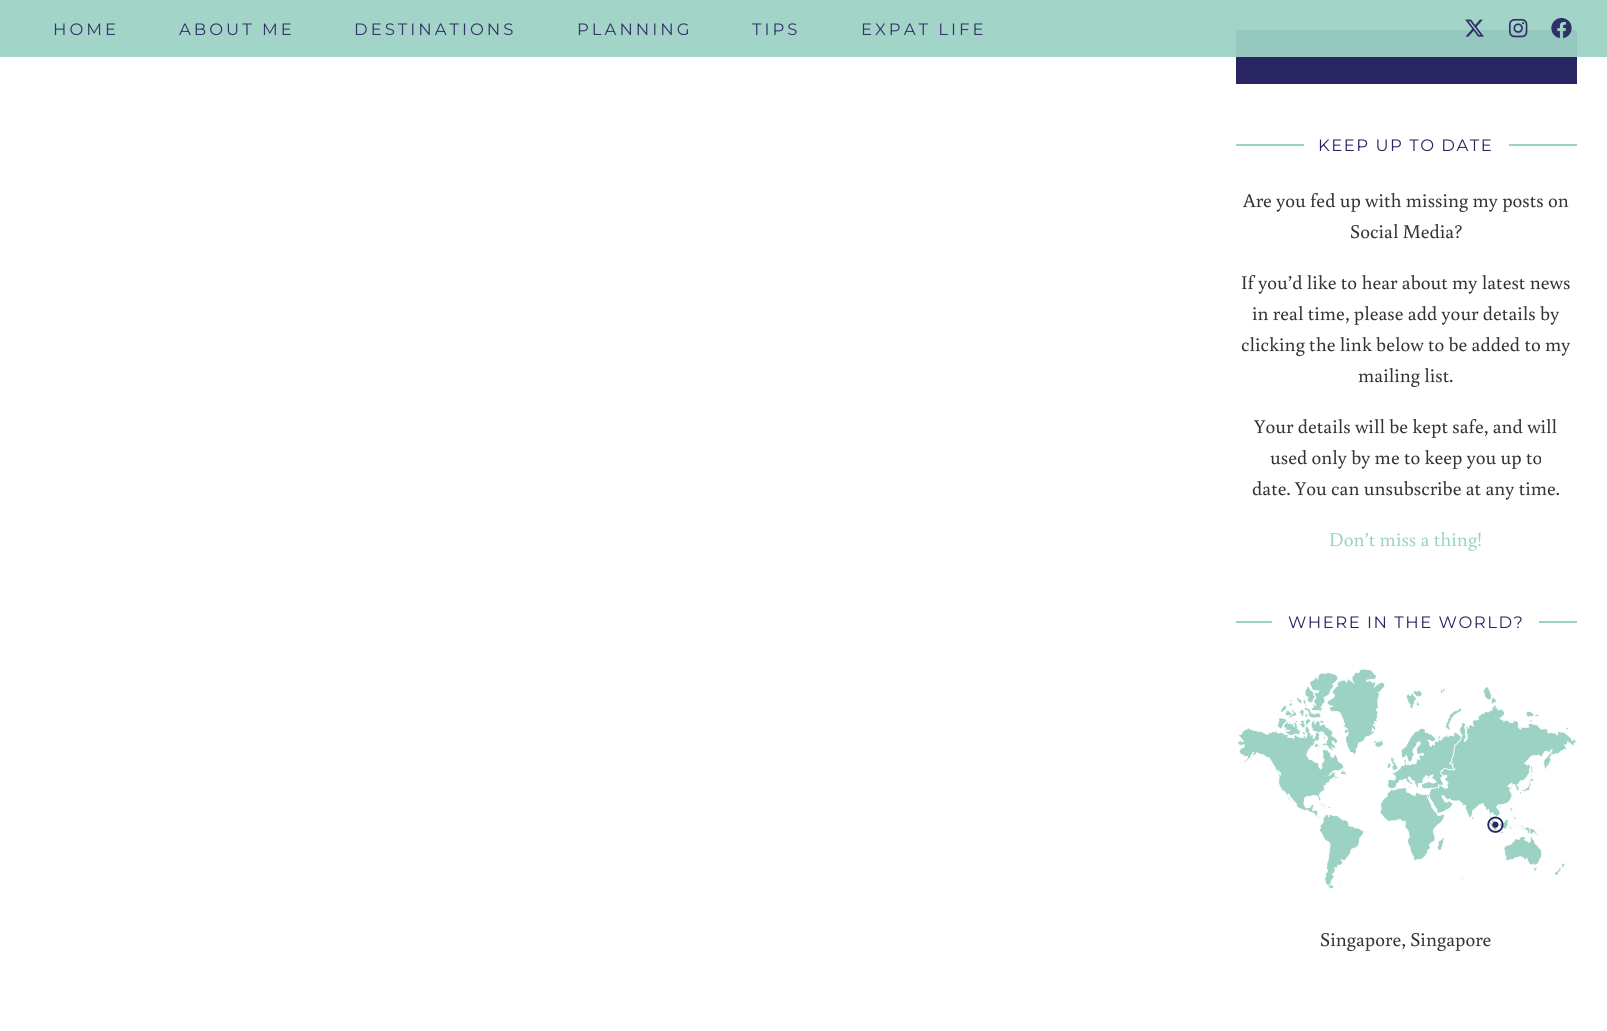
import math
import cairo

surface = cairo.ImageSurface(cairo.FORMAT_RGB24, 1607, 1031)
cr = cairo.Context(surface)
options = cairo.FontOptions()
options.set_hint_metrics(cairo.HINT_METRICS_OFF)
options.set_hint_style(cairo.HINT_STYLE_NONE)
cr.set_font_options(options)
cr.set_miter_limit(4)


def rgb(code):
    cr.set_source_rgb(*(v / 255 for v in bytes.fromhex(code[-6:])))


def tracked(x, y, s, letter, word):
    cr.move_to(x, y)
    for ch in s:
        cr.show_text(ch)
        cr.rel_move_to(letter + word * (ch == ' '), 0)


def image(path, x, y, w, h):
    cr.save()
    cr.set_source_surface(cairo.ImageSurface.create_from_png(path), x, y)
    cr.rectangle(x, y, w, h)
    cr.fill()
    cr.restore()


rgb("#ffffff")
cr.paint()
rgb("#282562")
cr.rectangle(1236, 30, 341, 54)
cr.fill()
cr.set_source_rgba(0.612, 0.824, 0.765, 0.94)
cr.rectangle(0, 0, 1607, 57)
cr.fill()
image("img/1.png", 1465, 19, 19, 18)
image("img/2.png", 1509, 18, 19, 20)
image("img/3.png", 1551, 17, 21, 22)
for x, y, w, h, color in [
    (1236, 144, 341, 2, "#9cd2c3"),
    (1304, 144, 205, 2, "#ffffff"),
    (1236, 621, 341, 2, "#9cd2c3"),
    (1272, 621, 267, 2, "#ffffff"),
]:
    rgb(color)
    cr.rectangle(x, y, w, h)
    cr.fill()
image("img/4.png", 1236, 669, 341, 220)
cr.select_font_face("Montserrat Thin")
cr.set_font_size(16.5)
rgb("#35326b")
for x, y, s in [
    (53, 35, "HOME"),
    (179, 35, "ABOUT ME"),
    (354, 35, "DESTINATIONS"),
    (577, 35, "PLANNING"),
    (752, 35, "TIPS"),
    (861, 35, "EXPAT LIFE"),
]:
    tracked(x, y, s, 3, 0)
rgb("#282562")
tracked(1318, 151, "KEEP UP TO DATE", 1.5, 0)
cr.select_font_face("Buenard")
cr.set_font_size(19.5)
rgb("#333333")
for x, y, s in [
    (1243, 207, "Are you fed up with missing my posts on"),
    (1350, 238, "Social Media?"),
    (1241, 289, "If you’d like to hear about my latest news"),
    (1252, 320, "in real time, please add your details by"),
    (1241, 351, "clicking the link below to be added to my"),
    (1358, 382, "mailing list."),
    (1254, 433, "Your details will be kept safe, and will"),
    (1270, 464, "used only by me to keep you up to"),
    (1252, 495, "date. You can unsubscribe at any time."),
]:
    cr.move_to(x, y)
    cr.show_text(s)
rgb("#9cd2c3")
cr.move_to(1329, 546)
cr.show_text("Don’t miss a thing!")
cr.select_font_face("Montserrat Thin")
cr.set_font_size(16.5)
rgb("#282562")
tracked(1288, 628, "WHERE IN THE WORLD?", 1.5, 0)
cr.select_font_face("Buenard")
cr.set_font_size(19.5)
rgb("#333333")
cr.move_to(1320, 946)
cr.show_text("Singapore, Singapore")
surface.write_to_png("page.png")
